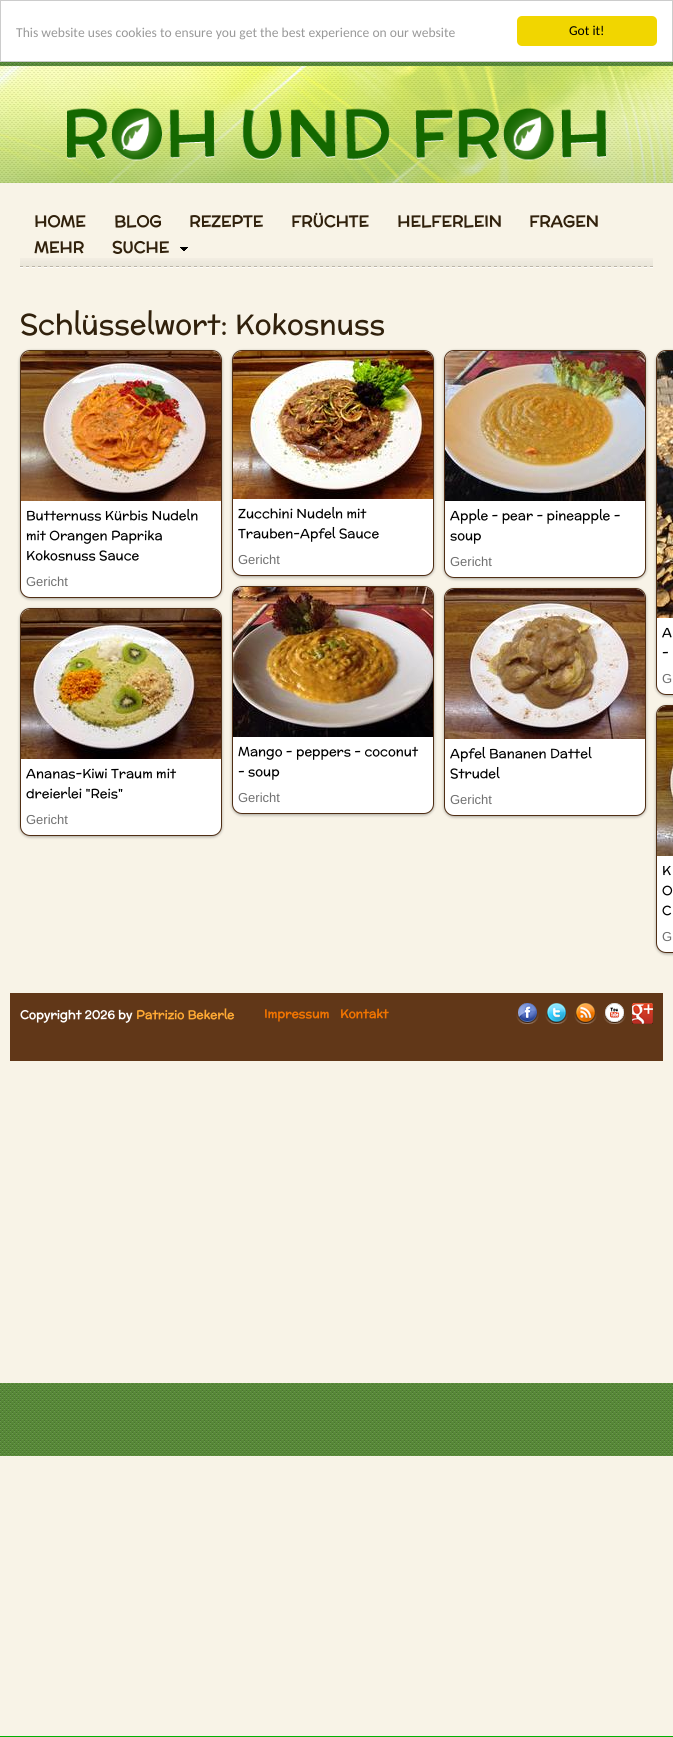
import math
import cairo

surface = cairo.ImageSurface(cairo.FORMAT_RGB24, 673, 1737)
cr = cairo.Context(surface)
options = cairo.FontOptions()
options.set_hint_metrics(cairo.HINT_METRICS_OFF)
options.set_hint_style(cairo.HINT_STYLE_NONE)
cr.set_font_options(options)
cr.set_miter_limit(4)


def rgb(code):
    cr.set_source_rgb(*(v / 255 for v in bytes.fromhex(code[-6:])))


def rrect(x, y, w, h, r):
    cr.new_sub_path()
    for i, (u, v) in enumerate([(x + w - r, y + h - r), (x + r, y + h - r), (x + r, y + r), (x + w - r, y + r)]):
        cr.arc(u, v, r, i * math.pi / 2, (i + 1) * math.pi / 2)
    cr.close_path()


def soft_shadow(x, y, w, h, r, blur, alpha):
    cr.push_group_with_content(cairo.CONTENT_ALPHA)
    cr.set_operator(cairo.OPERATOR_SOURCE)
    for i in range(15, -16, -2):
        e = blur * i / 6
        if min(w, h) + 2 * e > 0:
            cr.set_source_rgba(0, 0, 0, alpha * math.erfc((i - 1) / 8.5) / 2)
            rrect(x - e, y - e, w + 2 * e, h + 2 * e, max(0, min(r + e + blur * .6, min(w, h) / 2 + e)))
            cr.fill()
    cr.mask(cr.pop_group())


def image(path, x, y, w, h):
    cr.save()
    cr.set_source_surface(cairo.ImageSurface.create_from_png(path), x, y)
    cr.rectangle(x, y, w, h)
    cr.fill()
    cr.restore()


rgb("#ffffff")
cr.paint()
image("img/1.png", 0, 62, 673, 1394)
cr.rectangle(0.5, 0.5, 672, 61)
rgb("#cccccc")
cr.set_line_width(1)
cr.stroke()
rgb("#f1d600")
rrect(517, 16, 140, 30, 5)
cr.fill()
image("img/2.png", 0, 66, 673, 117)
image("img/3.png", 67, 107, 539, 54)
rgb("#f8f3e7")
cr.rectangle(0, 183, 673, 1200)
cr.fill()
image("img/4.png", 20, 258, 633, 10)
image("img/5.png", 180, 247, 8, 4)
rgb("#000000")
soft_shadow(20, 351, 202, 248, 10, 1.5, 0.33)
rgb("#ffffff")
rrect(20.5, 350.5, 201, 247, 9.5)
cr.fill_preserve()
rgb("#502e14")
cr.stroke()
image("img/6.png", 21, 351, 200, 150)
rgb("#000000")
soft_shadow(232, 351, 202, 226, 10, 1.5, 0.33)
rgb("#ffffff")
rrect(232.5, 350.5, 201, 225, 9.5)
cr.fill_preserve()
rgb("#502e14")
cr.stroke()
image("img/7.png", 233, 351, 200, 148)
rgb("#000000")
soft_shadow(444, 351, 202, 228, 10, 1.5, 0.33)
rgb("#ffffff")
rrect(444.5, 350.5, 201, 227, 9.5)
cr.fill_preserve()
rgb("#502e14")
cr.stroke()
image("img/8.png", 445, 351, 200, 150)
rgb("#000000")
soft_shadow(656, 351, 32, 345, 10, 1.5, 0.33)
rgb("#ffffff")
rrect(656.5, 350.5, 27, 344, 9.5)
cr.fill_preserve()
rgb("#502e14")
cr.stroke()
image("img/9.png", 657, 351, 16, 267)
rgb("#000000")
soft_shadow(20, 609, 202, 228, 10, 1.5, 0.33)
rgb("#ffffff")
rrect(20.5, 608.5, 201, 227, 9.5)
cr.fill_preserve()
rgb("#502e14")
cr.stroke()
image("img/10.png", 21, 609, 200, 150)
rgb("#000000")
soft_shadow(232, 587, 202, 228, 10, 1.5, 0.33)
rgb("#ffffff")
rrect(232.5, 586.5, 201, 227, 9.5)
cr.fill_preserve()
rgb("#502e14")
cr.stroke()
image("img/11.png", 233, 587, 200, 150)
rgb("#000000")
soft_shadow(444, 589, 202, 228, 10, 1.5, 0.33)
rgb("#ffffff")
rrect(444.5, 588.5, 201, 227, 9.5)
cr.fill_preserve()
rgb("#502e14")
cr.stroke()
image("img/12.png", 445, 589, 200, 150)
rgb("#000000")
soft_shadow(656, 706, 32, 248, 10, 1.5, 0.33)
rgb("#ffffff")
rrect(656.5, 705.5, 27, 247, 9.5)
cr.fill_preserve()
rgb("#502e14")
cr.stroke()
image("img/13.png", 657, 706, 16, 150)
rgb("#613718")
cr.rectangle(10, 993, 653, 68)
cr.fill()
image("img/14.png", 516, 1003, 23, 21)
image("img/15.png", 545, 1003, 23, 21)
image("img/16.png", 574, 1003, 23, 21)
image("img/17.png", 603, 1003, 23, 21)
image("img/18.png", 632, 1003, 21, 21)
rgb("#f8f3e7")
cr.rectangle(0, 1456, 673, 280)
cr.fill()
rgb("#00b000")
cr.rectangle(0, 1736, 673, 1)
cr.fill()
cr.select_font_face("Carlito")
cr.set_font_size(13.6)
rgb("#999999")
cr.move_to(16, 37)
cr.show_text("This website uses cookies to ensure you get the best experience on our website")
rgb("#000000")
cr.move_to(569, 35)
cr.show_text("Got it!")
cr.select_font_face("McLaren", cairo.FONT_SLANT_NORMAL, cairo.FONT_WEIGHT_BOLD)
cr.set_font_size(16)
rgb("#31210c")
for x, y, s in [
    (34, 227, "HOME"),
    (114, 227, "BLOG"),
    (189, 227, "REZEPTE"),
    (291, 227, "FRÜCHTE"),
    (397, 227, "HELFERLEIN"),
    (529, 227, "FRAGEN"),
    (34, 253, "MEHR"),
    (112, 253, "SUCHE"),
]:
    cr.move_to(x, y)
    cr.show_text(s)
cr.select_font_face("McLaren")
cr.set_font_size(28)
cr.move_to(20, 334)
cr.show_text("Schlüsselwort: Kokosnuss")
cr.set_font_size(13)
rgb("#000000")
for x, y, s in [
    (26, 520, "Butternuss Kürbis Nudeln"),
    (26, 540, "mit Orangen Paprika"),
    (26, 560, "Kokosnuss Sauce"),
]:
    cr.move_to(x, y)
    cr.show_text(s)
cr.select_font_face("Liberation Sans")
rgb("#707070")
cr.move_to(26, 586)
cr.show_text("Gericht")
cr.select_font_face("McLaren")
rgb("#000000")
cr.move_to(238, 518)
cr.show_text("Zucchini Nudeln mit")
cr.move_to(238, 538)
cr.show_text("Trauben-Apfel Sauce")
cr.select_font_face("Liberation Sans")
rgb("#707070")
cr.move_to(238, 564)
cr.show_text("Gericht")
cr.select_font_face("McLaren")
rgb("#000000")
cr.move_to(450, 520)
cr.show_text("Apple - pear - pineapple -")
cr.move_to(450, 540)
cr.show_text("soup")
cr.select_font_face("Liberation Sans")
rgb("#707070")
cr.move_to(450, 566)
cr.show_text("Gericht")
cr.select_font_face("McLaren")
rgb("#000000")
cr.move_to(662, 637)
cr.show_text("A")
cr.move_to(662, 657)
cr.show_text("-")
cr.select_font_face("Liberation Sans")
rgb("#707070")
cr.move_to(662, 683)
cr.show_text("G")
cr.select_font_face("McLaren")
rgb("#000000")
cr.move_to(26, 778)
cr.show_text("Ananas-Kiwi Traum mit")
cr.move_to(26, 798)
cr.show_text("dreierlei \"Reis\"")
cr.select_font_face("Liberation Sans")
rgb("#707070")
cr.move_to(26, 824)
cr.show_text("Gericht")
cr.select_font_face("McLaren")
rgb("#000000")
cr.move_to(238, 756)
cr.show_text("Mango - peppers - coconut")
cr.move_to(238, 776)
cr.show_text("- soup")
cr.select_font_face("Liberation Sans")
rgb("#707070")
cr.move_to(238, 802)
cr.show_text("Gericht")
cr.select_font_face("McLaren")
rgb("#000000")
cr.move_to(450, 758)
cr.show_text("Apfel Bananen Dattel")
cr.move_to(450, 778)
cr.show_text("Strudel")
cr.select_font_face("Liberation Sans")
rgb("#707070")
cr.move_to(450, 804)
cr.show_text("Gericht")
cr.select_font_face("McLaren")
rgb("#000000")
for x, y, s in [
    (662, 875, "K"),
    (662, 895, "O"),
    (662, 915, "C"),
]:
    cr.move_to(x, y)
    cr.show_text(s)
cr.select_font_face("Liberation Sans")
rgb("#707070")
cr.move_to(662, 941)
cr.show_text("G")
cr.select_font_face("McLaren", cairo.FONT_SLANT_NORMAL, cairo.FONT_WEIGHT_BOLD)
cr.set_font_size(12)
rgb("#ffffff")
cr.move_to(20, 1019)
cr.show_text("Copyright 2026 by")
rgb("#ffaa34")
cr.move_to(136, 1019)
cr.show_text("Patrizio Bekerle")
rgb("#f17400")
cr.move_to(264, 1018)
cr.show_text("Impressum")
cr.move_to(340, 1018)
cr.show_text("Kontakt")
surface.write_to_png("page.png")
